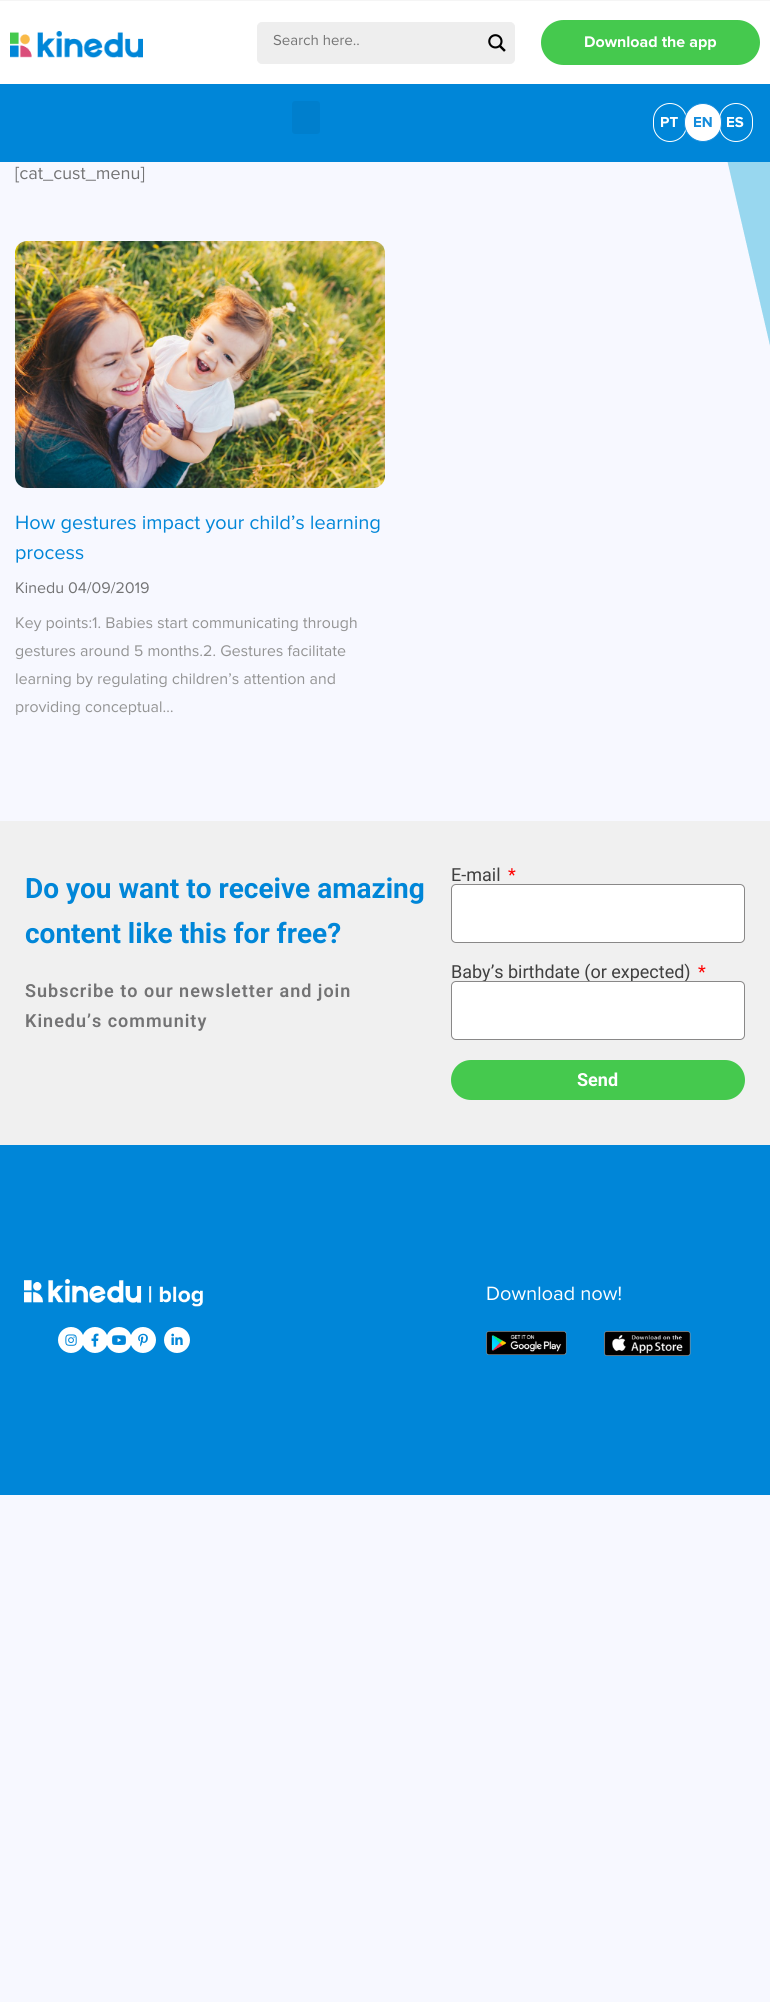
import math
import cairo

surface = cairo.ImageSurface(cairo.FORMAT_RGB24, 770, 2002)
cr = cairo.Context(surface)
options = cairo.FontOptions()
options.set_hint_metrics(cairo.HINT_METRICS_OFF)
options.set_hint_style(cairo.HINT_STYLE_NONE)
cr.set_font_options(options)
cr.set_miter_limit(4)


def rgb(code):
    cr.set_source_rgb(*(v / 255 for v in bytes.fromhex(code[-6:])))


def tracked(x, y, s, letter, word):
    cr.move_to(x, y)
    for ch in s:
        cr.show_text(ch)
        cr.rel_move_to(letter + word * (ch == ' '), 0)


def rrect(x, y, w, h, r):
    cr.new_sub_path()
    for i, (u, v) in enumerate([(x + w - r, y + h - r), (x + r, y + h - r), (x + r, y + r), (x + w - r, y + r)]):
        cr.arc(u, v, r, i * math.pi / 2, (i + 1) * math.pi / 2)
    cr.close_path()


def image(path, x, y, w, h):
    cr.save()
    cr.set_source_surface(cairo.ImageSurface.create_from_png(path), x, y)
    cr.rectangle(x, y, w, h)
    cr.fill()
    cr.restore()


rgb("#f7f8ff")
cr.paint()
rgb("#f5f5f5")
cr.rectangle(0, 0, 770, 1)
cr.fill()
rgb("#ffffff")
cr.rectangle(0, 1, 770, 83)
cr.fill()
image("img/1.png", 10, 31, 133, 27)
rgb("#eeeeee")
rrect(257.5, 22.5, 257, 41, 4.5)
cr.fill_preserve()
cr.set_line_width(1)
cr.stroke()
image("img/2.png", 273, 34, 86, 12)
image("img/3.png", 488, 34, 18, 18)
rgb("#45c94e")
rrect(541, 20, 219, 45, 22.5)
cr.fill()
rgb("#0086d8")
cr.rectangle(0, 84, 770, 78)
cr.fill()
rgb("#007fcd")
rrect(292, 101, 28, 33, 3)
cr.fill()
rrect(653.5, 103.5, 33, 38, 16.5)
rgb("#ffffff")
cr.stroke()
rrect(684.5, 103.5, 37, 38, 18.5)
cr.fill_preserve()
rgb("#148cdc")
cr.stroke()
rrect(719.5, 103.5, 33, 38, 16.5)
rgb("#ffffff")
cr.stroke()
image("img/4.png", 727, 162, 43, 184)
image("img/5.png", 15, 166, 130, 17)
image("img/6.png", 15, 241, 370, 247)
image("img/7.png", 16, 515, 364, 18)
image("img/8.png", 16, 549, 68, 14)
image("img/9.png", 16, 582, 47, 12)
image("img/10.png", 68, 582, 81, 12)
image("img/11.png", 16, 617, 341, 15)
image("img/12.png", 15, 645, 331, 15)
image("img/13.png", 16, 673, 319, 15)
image("img/14.png", 16, 701, 157, 15)
rgb("#f0f0f0")
cr.rectangle(0, 821, 770, 324)
cr.fill()
rgb("#ffffff")
rrect(451.5, 884.5, 293, 58, 4.5)
cr.fill_preserve()
rgb("#898888")
cr.stroke()
rgb("#45c94e")
rrect(451, 1060, 294, 40, 20)
cr.fill()
rgb("#0086d8")
cr.rectangle(0, 1145, 770, 350)
cr.fill()
image("img/15.png", 24, 1279, 179, 28)
rgb("#ffffff")
cr.arc(71, 1340, 13, 0, 2 * math.pi)
cr.fill()
image("img/16.png", 65, 1334, 12, 12)
cr.arc(95, 1340, 13, 0, 2 * math.pi)
cr.fill()
image("img/17.png", 91, 1333, 8, 14)
cr.arc(119, 1340, 13, 0, 2 * math.pi)
cr.fill()
image("img/18.png", 112, 1335, 14, 10)
cr.arc(143, 1340, 13, 0, 2 * math.pi)
cr.fill()
image("img/19.png", 138, 1333, 10, 14)
cr.arc(177, 1340, 13, 0, 2 * math.pi)
cr.fill()
image("img/20.png", 171, 1333, 12, 12)
image("img/21.png", 487, 1286, 134, 15)
image("img/22.png", 486, 1331, 81, 24)
image("img/23.png", 604, 1331, 87, 25)
cr.select_font_face("Proxima Nova", cairo.FONT_SLANT_NORMAL, cairo.FONT_WEIGHT_BOLD)
cr.set_font_size(16)
cr.move_to(584, 47)
cr.show_text("Download the app")
cr.set_font_size(15)
cr.move_to(660, 127)
cr.show_text("PT")
rgb("#148cdc")
cr.move_to(693, 127)
cr.show_text("EN")
rgb("#ffffff")
cr.move_to(726, 127)
cr.show_text("ES")
cr.select_font_face("Roboto", cairo.FONT_SLANT_NORMAL, cairo.FONT_WEIGHT_BOLD)
cr.set_font_size(28)
rgb("#0086d8")
cr.move_to(25, 898)
cr.show_text("Do you want to receive amazing")
cr.move_to(25, 943)
cr.show_text("content like this for free?")
cr.select_font_face("Roboto SemiBold")
cr.set_font_size(18)
rgb("#737374")
tracked(25, 997, "Subscribe to our newsletter and join", 1, 0)
tracked(25, 1027, "Kinedu’s community", 1, 0)
cr.select_font_face("Roboto")
rgb("#404040")
cr.move_to(451, 881)
cr.show_text("E-mail")
rgb("#ff0000")
cr.move_to(508, 881)
cr.show_text("*")
rgb("#404040")
cr.move_to(451, 978)
cr.show_text("Baby’s birthdate (or expected)")
rgb("#ff0000")
cr.move_to(698, 978)
cr.show_text("*")
rgb("#ffffff")
rrect(451.5, 981.5, 293, 58, 4.5)
cr.fill_preserve()
rgb("#898888")
cr.stroke()
cr.select_font_face("Roboto", cairo.FONT_SLANT_NORMAL, cairo.FONT_WEIGHT_BOLD)
rgb("#ffffff")
cr.move_to(577, 1086)
cr.show_text("Send")
surface.write_to_png("page.png")
